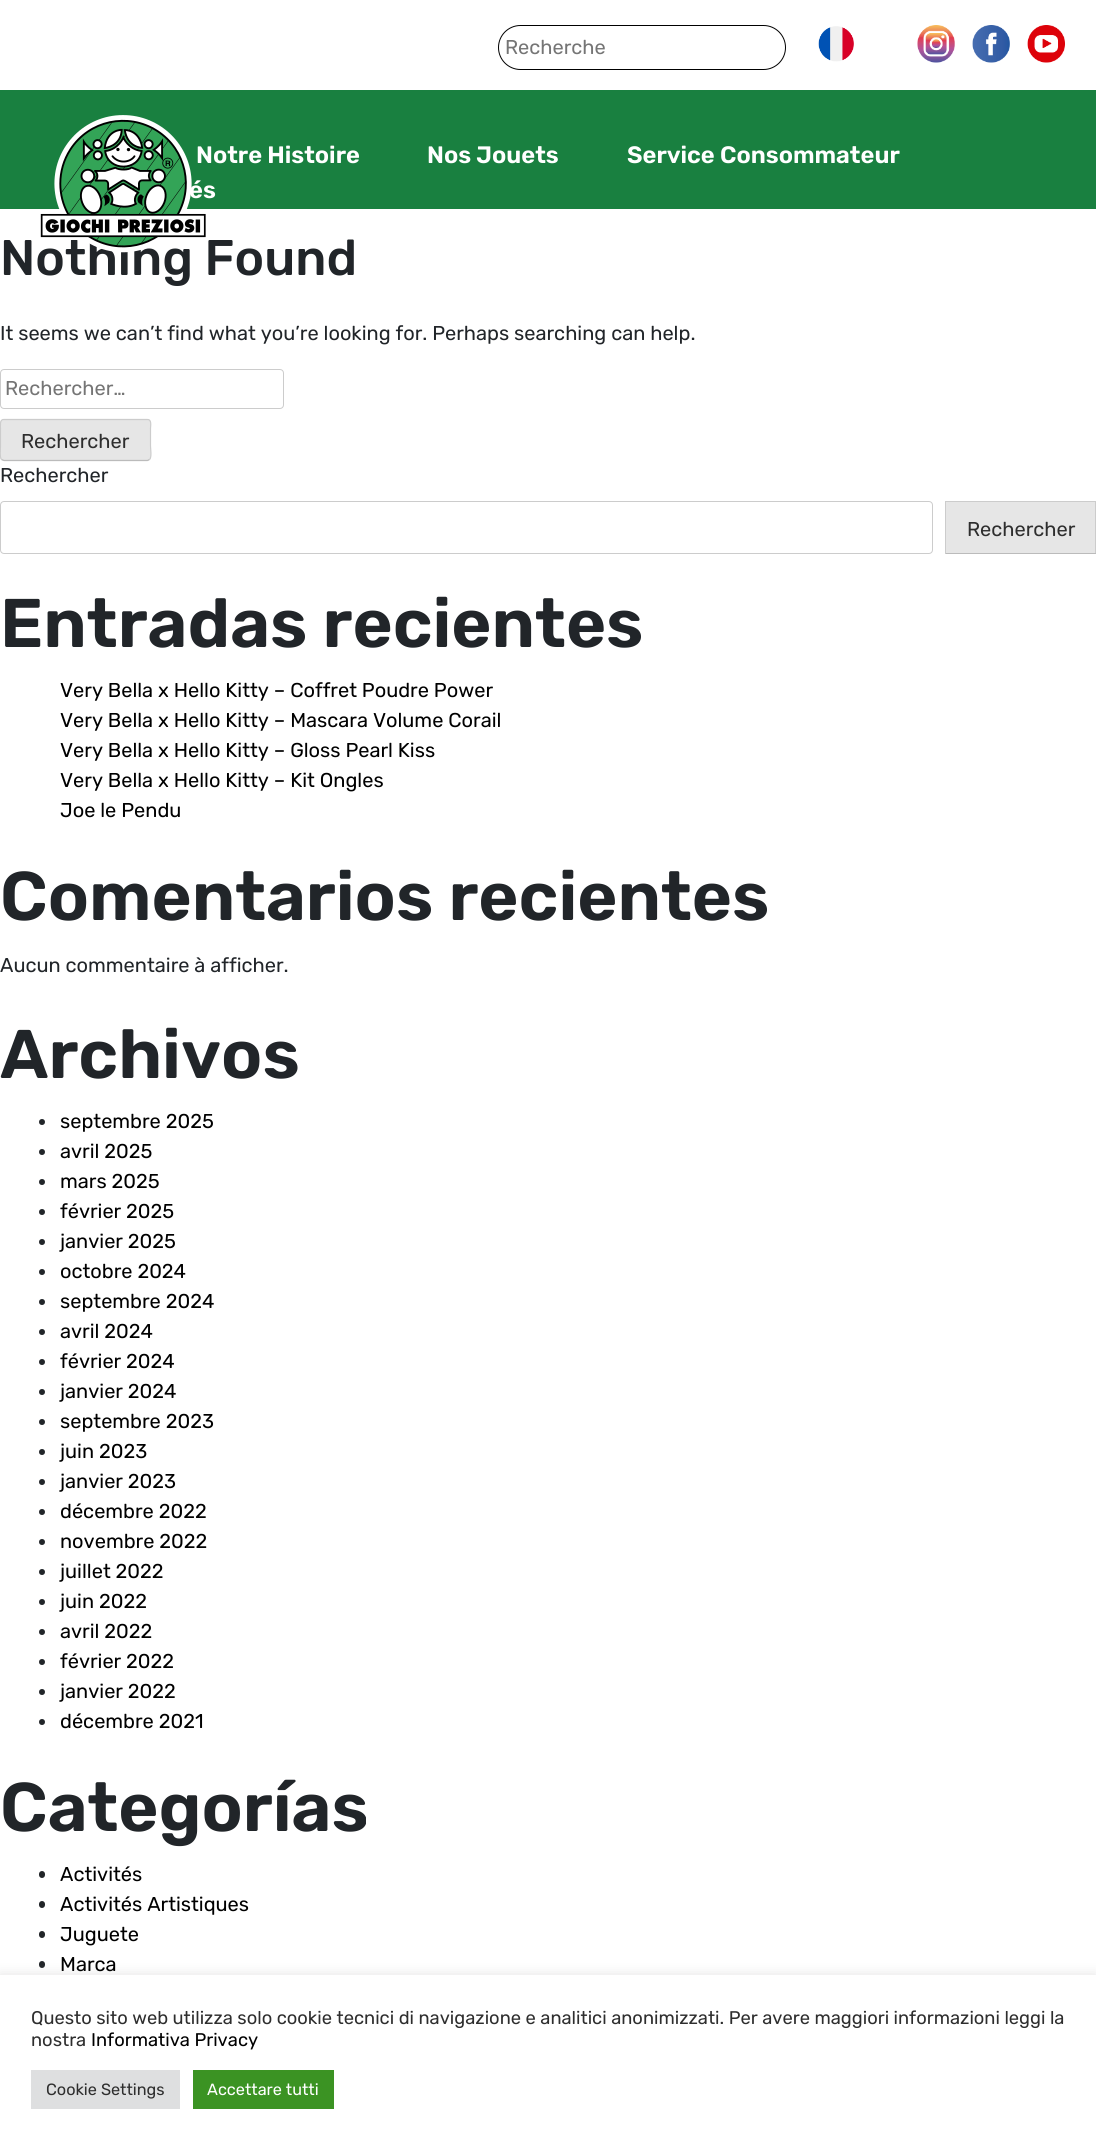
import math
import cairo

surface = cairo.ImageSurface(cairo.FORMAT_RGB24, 1096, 2146)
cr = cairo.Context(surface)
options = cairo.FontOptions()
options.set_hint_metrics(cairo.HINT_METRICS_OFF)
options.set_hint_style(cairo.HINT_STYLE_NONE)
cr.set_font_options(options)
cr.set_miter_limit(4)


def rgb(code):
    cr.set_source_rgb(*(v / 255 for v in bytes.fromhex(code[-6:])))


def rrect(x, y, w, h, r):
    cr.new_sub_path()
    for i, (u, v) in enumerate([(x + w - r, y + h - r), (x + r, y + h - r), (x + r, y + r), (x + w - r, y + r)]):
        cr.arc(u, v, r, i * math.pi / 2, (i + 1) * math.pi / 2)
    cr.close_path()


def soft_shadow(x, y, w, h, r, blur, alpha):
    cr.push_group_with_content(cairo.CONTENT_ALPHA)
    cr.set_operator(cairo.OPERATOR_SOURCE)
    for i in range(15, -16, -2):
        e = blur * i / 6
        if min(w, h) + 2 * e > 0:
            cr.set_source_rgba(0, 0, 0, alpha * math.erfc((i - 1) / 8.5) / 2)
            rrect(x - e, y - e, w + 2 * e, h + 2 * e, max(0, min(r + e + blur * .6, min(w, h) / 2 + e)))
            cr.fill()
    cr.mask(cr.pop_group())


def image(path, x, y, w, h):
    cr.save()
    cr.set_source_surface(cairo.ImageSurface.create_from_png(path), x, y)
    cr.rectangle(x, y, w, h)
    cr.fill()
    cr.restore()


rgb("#ffffff")
cr.paint()
rrect(498.5, 25.5, 287, 44, 22)
rgb("#000000")
cr.set_line_width(1)
cr.stroke()
image("img/1.png", 818, 26, 36, 36)
image("img/2.png", 917, 25, 38, 38)
image("img/3.png", 972, 25, 38, 38)
image("img/4.png", 1027, 25, 38, 38)
rgb("#198040")
cr.rectangle(0, 90, 1096, 119)
cr.fill()
rrect(0.5, 369.5, 283, 39, 3.5)
rgb("#cccccc")
cr.stroke()
rgb("#e6e6e6")
rrect(0, 419, 151, 42, 4)
cr.fill()
cr.new_path()
cr.move_to(149.5, 459.5)
cr.line_to(147.5, 460.5)
cr.line_to(4, 460.5)
cr.line_to(1.5, 459.5)
rgb("#bbbbbb")
cr.set_line_width(1.2)
cr.stroke()
cr.new_path()
cr.move_to(1.5, 459.5)
cr.curve_to(-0.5, 457.5, 0.5, 448.5, 0.5, 446)
cr.line_to(0.5, 428.5)
cr.curve_to(0.5, 426, -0.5, 419.5, 3.5, 419.5)
cr.line_to(147.5, 419.5)
cr.curve_to(152, 419.5, 150.5, 426, 150.5, 428.5)
cr.line_to(150.5, 446)
cr.curve_to(150.5, 448.5, 152, 457.5, 149.5, 459.5)
rgb("#cccccc")
cr.stroke()
rrect(0.5, 501.5, 932, 52, 3.5)
cr.set_line_width(1)
cr.stroke()
for x, y, w, h, color in [
    (946, 502, 149, 51, "#e6e6e6"),
    (945, 501, 151, 1, "#cccccc"),
    (1095, 501, 1, 53, "#cccccc"),
    (945, 553, 151, 1, "#bbbbbb"),
    (945, 501, 1, 53, "#cccccc"),
]:
    rgb(color)
    cr.rectangle(x, y, w, h)
    cr.fill()
rgb("#212529")
cr.arc(42, 1122, 3, 0, 2 * math.pi)
cr.fill()
cr.arc(42, 1152, 3, 0, 2 * math.pi)
cr.fill()
cr.arc(42, 1182, 3, 0, 2 * math.pi)
cr.fill()
cr.arc(42, 1212, 3, 0, 2 * math.pi)
cr.fill()
cr.arc(42, 1242, 3, 0, 2 * math.pi)
cr.fill()
cr.arc(42, 1272, 3, 0, 2 * math.pi)
cr.fill()
cr.arc(42, 1302, 3, 0, 2 * math.pi)
cr.fill()
cr.arc(42, 1332, 3, 0, 2 * math.pi)
cr.fill()
cr.arc(42, 1362, 3, 0, 2 * math.pi)
cr.fill()
cr.arc(42, 1392, 3, 0, 2 * math.pi)
cr.fill()
cr.arc(42, 1422, 3, 0, 2 * math.pi)
cr.fill()
cr.arc(42, 1452, 3, 0, 2 * math.pi)
cr.fill()
cr.arc(42, 1482, 3, 0, 2 * math.pi)
cr.fill()
cr.arc(42, 1512, 3, 0, 2 * math.pi)
cr.fill()
cr.arc(42, 1542, 3, 0, 2 * math.pi)
cr.fill()
cr.arc(42, 1572, 3, 0, 2 * math.pi)
cr.fill()
cr.arc(42, 1602, 3, 0, 2 * math.pi)
cr.fill()
cr.arc(42, 1632, 3, 0, 2 * math.pi)
cr.fill()
cr.arc(42, 1662, 3, 0, 2 * math.pi)
cr.fill()
cr.arc(42, 1692, 3, 0, 2 * math.pi)
cr.fill()
cr.arc(42, 1722, 3, 0, 2 * math.pi)
cr.fill()
rrect(39, 1871, 6, 7, 3)
cr.fill()
rrect(39, 1901, 6, 7, 3)
cr.fill()
rrect(39, 1931, 6, 7, 3)
cr.fill()
rrect(39, 1961, 6, 7, 3)
cr.fill()
rgb("#acabab")
soft_shadow(0, 1974, 1096, 171, 0, 6, 0.3)
for x, y, w, h, color in [
    (0, 1975, 1096, 171, "#ffffff"),
    (31, 2070, 149, 39, "#dedfe0"),
    (193, 2070, 141, 39, "#3b9323"),
]:
    rgb(color)
    cr.rectangle(x, y, w, h)
    cr.fill()
cr.select_font_face("Rubik")
cr.set_font_size(20)
rgb("#757575")
cr.move_to(505, 54)
cr.show_text("Recherche")
cr.select_font_face("Rubik SemiBold")
cr.set_font_size(23.75)
rgb("#ffffff")
for x, y, s in [
    (196, 163, "Notre Histoire"),
    (427, 163, "Nos Jouets"),
    (627, 163, "Service Consommateur"),
    (189, 198, "és"),
]:
    cr.move_to(x, y)
    cr.show_text(s)
cr.select_font_face("Rubik Medium")
cr.set_font_size(50)
rgb("#212529")
cr.move_to(0, 275)
cr.show_text("Nothing Found")
image("img/5.png", 40, 115, 166, 138)
cr.select_font_face("Rubik")
cr.set_font_size(20)
cr.move_to(0, 340)
cr.show_text("It seems we can’t find what you’re looking for. Perhaps searching can help.")
rgb("#757575")
cr.move_to(5, 395)
cr.show_text("Rechercher…")
rgb("#2e2e2e")
cr.move_to(21, 448)
cr.show_text("Rechercher")
rgb("#212529")
cr.move_to(0, 482)
cr.show_text("Rechercher")
rgb("#2e2e2e")
cr.move_to(967, 536)
cr.show_text("Rechercher")
cr.select_font_face("Rubik SemiBold")
cr.set_font_size(68.75)
rgb("#212529")
cr.move_to(0, 647)
cr.show_text("Entradas recientes")
cr.select_font_face("Rubik")
cr.set_font_size(20)
rgb("#000000")
for x, y, s in [
    (60, 697, "Very Bella x Hello Kitty – Coffret Poudre Power"),
    (60, 727, "Very Bella x Hello Kitty – Mascara Volume Corail"),
    (60, 757, "Very Bella x Hello Kitty – Gloss Pearl Kiss"),
    (60, 787, "Very Bella x Hello Kitty – Kit Ongles"),
    (60, 817, "Joe le Pendu"),
]:
    cr.move_to(x, y)
    cr.show_text(s)
cr.select_font_face("Rubik SemiBold")
cr.set_font_size(68.75)
rgb("#212529")
cr.move_to(0, 920)
cr.show_text("Comentarios recientes")
cr.select_font_face("Rubik")
cr.set_font_size(20)
cr.move_to(0, 972)
cr.show_text("Aucun commentaire à afficher.")
cr.select_font_face("Rubik SemiBold")
cr.set_font_size(68.75)
cr.move_to(0, 1078)
cr.show_text("Archivos")
cr.select_font_face("Rubik")
cr.set_font_size(20)
rgb("#000000")
for x, y, s in [
    (60, 1128, "septembre 2025"),
    (60, 1158, "avril 2025"),
    (60, 1188, "mars 2025"),
    (60, 1218, "février 2025"),
    (60, 1248, "janvier 2025"),
    (60, 1278, "octobre 2024"),
    (60, 1308, "septembre 2024"),
    (60, 1338, "avril 2024"),
    (60, 1368, "février 2024"),
    (60, 1398, "janvier 2024"),
    (60, 1428, "septembre 2023"),
    (60, 1458, "juin 2023"),
    (60, 1488, "janvier 2023"),
    (60, 1518, "décembre 2022"),
    (60, 1548, "novembre 2022"),
    (60, 1578, "juillet 2022"),
    (60, 1608, "juin 2022"),
    (60, 1638, "avril 2022"),
    (60, 1668, "février 2022"),
    (60, 1698, "janvier 2022"),
    (60, 1728, "décembre 2021"),
]:
    cr.move_to(x, y)
    cr.show_text(s)
cr.select_font_face("Rubik SemiBold")
cr.set_font_size(68.75)
rgb("#212529")
cr.move_to(0, 1831)
cr.show_text("Categorías")
cr.select_font_face("Rubik")
cr.set_font_size(20)
rgb("#000000")
for x, y, s in [
    (60, 1881, "Activités"),
    (60, 1911, "Activités Artistiques"),
    (60, 1941, "Juguete"),
    (60, 1971, "Marca"),
]:
    cr.move_to(x, y)
    cr.show_text(s)
cr.set_font_size(18.33)
rgb("#2e2e2e")
cr.move_to(31, 2024)
cr.show_text("Questo sito web utilizza solo cookie tecnici di navigazione e analitici anonimizzati. Per avere maggiori informazioni leggi la")
cr.move_to(31, 2046)
cr.show_text("nostra")
rgb("#000000")
cr.move_to(91, 2046)
cr.show_text("Informativa Privacy")
cr.set_font_size(16.25)
rgb("#2e2e2e")
cr.move_to(46, 2095)
cr.show_text("Cookie Settings")
rgb("#ffffff")
cr.move_to(207, 2095)
cr.show_text("Accettare tutti")
surface.write_to_png("page.png")
